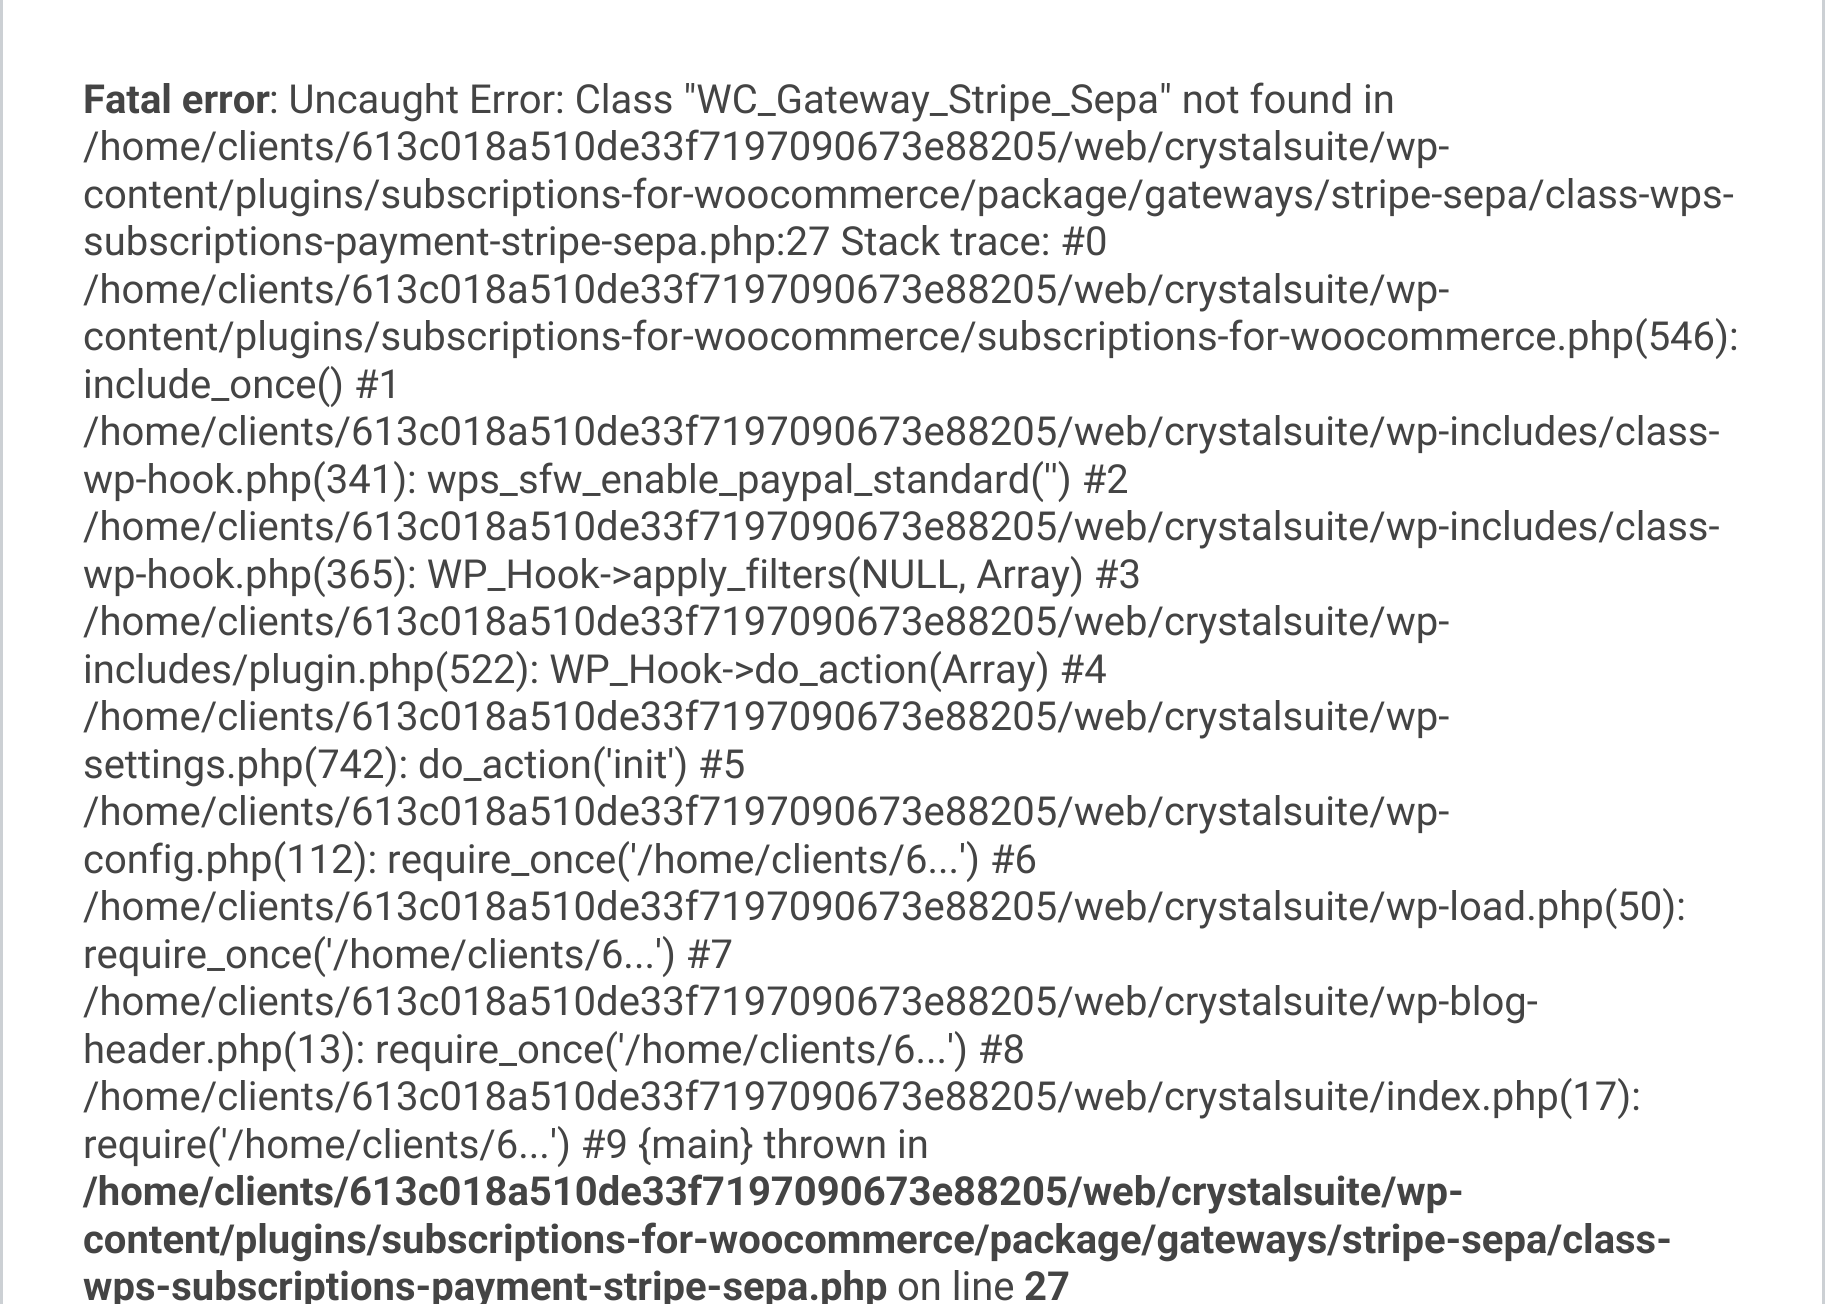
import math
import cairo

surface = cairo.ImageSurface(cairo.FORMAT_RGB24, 1825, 1304)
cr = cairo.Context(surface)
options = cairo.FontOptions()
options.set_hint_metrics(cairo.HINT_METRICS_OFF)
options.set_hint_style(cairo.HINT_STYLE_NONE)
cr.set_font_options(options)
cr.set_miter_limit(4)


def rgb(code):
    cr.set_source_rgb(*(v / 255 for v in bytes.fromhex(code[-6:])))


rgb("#ffffff")
cr.paint()
cr.rectangle(1.5, -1.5, 1822, 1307)
rgb("#ccd0d4")
cr.set_line_width(3)
cr.stroke()
cr.select_font_face("Roboto", cairo.FONT_SLANT_NORMAL, cairo.FONT_WEIGHT_BOLD)
cr.set_font_size(40)
rgb("#444444")
cr.move_to(83, 113)
cr.show_text("Fatal error")
cr.select_font_face("Roboto")
for x, y, s in [
    (269, 113, ": Uncaught Error: Class \"WC_Gateway_Stripe_Sepa\" not found in"),
    (83, 160, "/home/clients/613c018a510de33f7197090673e88205/web/crystalsuite/wp-"),
    (83, 208, "content/plugins/subscriptions-for-woocommerce/package/gateways/stripe-sepa/class-wps-"),
    (83, 255, "subscriptions-payment-stripe-sepa.php:27 Stack trace: #0"),
    (83, 303, "/home/clients/613c018a510de33f7197090673e88205/web/crystalsuite/wp-"),
    (83, 350, "content/plugins/subscriptions-for-woocommerce/subscriptions-for-woocommerce.php(546):"),
    (83, 398, "include_once() #1"),
    (83, 445, "/home/clients/613c018a510de33f7197090673e88205/web/crystalsuite/wp-includes/class-"),
    (83, 493, "wp-hook.php(341): wps_sfw_enable_paypal_standard('') #2"),
    (83, 540, "/home/clients/613c018a510de33f7197090673e88205/web/crystalsuite/wp-includes/class-"),
    (83, 588, "wp-hook.php(365): WP_Hook->apply_filters(NULL, Array) #3"),
    (83, 635, "/home/clients/613c018a510de33f7197090673e88205/web/crystalsuite/wp-"),
    (83, 683, "includes/plugin.php(522): WP_Hook->do_action(Array) #4"),
    (83, 730, "/home/clients/613c018a510de33f7197090673e88205/web/crystalsuite/wp-"),
    (83, 778, "settings.php(742): do_action('init') #5"),
    (83, 825, "/home/clients/613c018a510de33f7197090673e88205/web/crystalsuite/wp-"),
    (83, 873, "config.php(112): require_once('/home/clients/6...') #6"),
    (83, 920, "/home/clients/613c018a510de33f7197090673e88205/web/crystalsuite/wp-load.php(50):"),
    (83, 968, "require_once('/home/clients/6...') #7"),
    (83, 1015, "/home/clients/613c018a510de33f7197090673e88205/web/crystalsuite/wp-blog-"),
    (83, 1063, "header.php(13): require_once('/home/clients/6...') #8"),
    (83, 1110, "/home/clients/613c018a510de33f7197090673e88205/web/crystalsuite/index.php(17):"),
    (83, 1158, "require('/home/clients/6...') #9 {main} thrown in"),
]:
    cr.move_to(x, y)
    cr.show_text(s)
cr.select_font_face("Roboto", cairo.FONT_SLANT_NORMAL, cairo.FONT_WEIGHT_BOLD)
for x, y, s in [
    (83, 1205, "/home/clients/613c018a510de33f7197090673e88205/web/crystalsuite/wp-"),
    (83, 1253, "content/plugins/subscriptions-for-woocommerce/package/gateways/stripe-sepa/class-"),
    (83, 1300, "wps-subscriptions-payment-stripe-sepa.php"),
]:
    cr.move_to(x, y)
    cr.show_text(s)
cr.select_font_face("Roboto")
cr.move_to(897, 1300)
cr.show_text("on line")
cr.select_font_face("Roboto", cairo.FONT_SLANT_NORMAL, cairo.FONT_WEIGHT_BOLD)
cr.move_to(1024, 1300)
cr.show_text("27")
surface.write_to_png("page.png")
